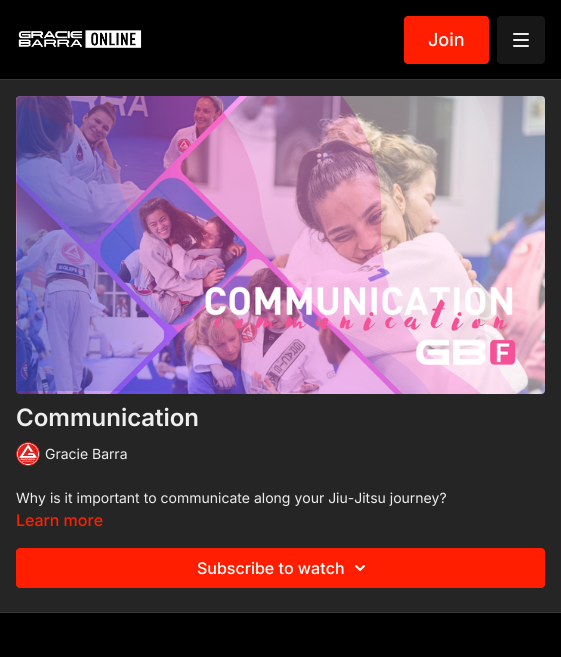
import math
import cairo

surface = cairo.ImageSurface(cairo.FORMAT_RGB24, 561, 657)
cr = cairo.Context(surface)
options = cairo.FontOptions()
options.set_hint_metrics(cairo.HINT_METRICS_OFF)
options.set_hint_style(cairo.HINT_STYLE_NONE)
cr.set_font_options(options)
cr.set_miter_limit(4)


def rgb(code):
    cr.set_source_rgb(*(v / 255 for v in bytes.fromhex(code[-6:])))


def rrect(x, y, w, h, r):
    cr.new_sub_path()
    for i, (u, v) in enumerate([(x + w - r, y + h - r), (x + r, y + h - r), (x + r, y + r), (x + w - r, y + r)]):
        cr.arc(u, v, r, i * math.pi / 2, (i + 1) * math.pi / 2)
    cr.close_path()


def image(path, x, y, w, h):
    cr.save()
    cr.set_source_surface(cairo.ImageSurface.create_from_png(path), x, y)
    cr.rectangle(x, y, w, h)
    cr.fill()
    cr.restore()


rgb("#252525")
cr.paint()
rgb("#000000")
cr.rectangle(0, 0, 561, 79)
cr.fill()
rgb("#373737")
cr.rectangle(0, 79, 561, 1)
cr.fill()
image("img/1.png", 18, 30, 124, 18)
rgb("#ff1f00")
rrect(404, 16, 85, 48, 4)
cr.fill()
rgb("#171717")
rrect(497, 16, 48, 48, 4)
cr.fill()
image("img/2.png", 513, 33, 16, 14)
image("img/3.png", 16, 96, 529, 298)
image("img/4.png", 16, 442, 24, 24)
rgb("#ff1f00")
rrect(16, 548, 529, 40, 4)
cr.fill()
image("img/5.png", 355, 565, 10, 6)
rgb("#000000")
cr.rectangle(0, 613, 561, 44)
cr.fill()
rgb("#373737")
cr.rectangle(0, 612, 561, 1)
cr.fill()
cr.select_font_face("Inter Medium")
cr.set_font_size(18)
rgb("#ffffff")
cr.move_to(428, 46)
cr.show_text("Join")
cr.select_font_face("Inter SemiBold")
cr.set_font_size(24)
rgb("#eeeeee")
cr.move_to(16, 426)
cr.show_text("Communication")
cr.select_font_face("Inter")
cr.set_font_size(14)
cr.move_to(45, 459)
cr.show_text("Gracie Barra")
cr.move_to(16, 503)
cr.show_text("Why is it important to communicate along your Jiu-Jitsu journey?")
cr.select_font_face("Inter Medium")
cr.set_font_size(16)
rgb("#ff1f00")
cr.move_to(16, 526)
cr.show_text("Learn more")
rgb("#ffffff")
cr.move_to(197, 574)
cr.show_text("Subscribe to watch")
surface.write_to_png("page.png")
